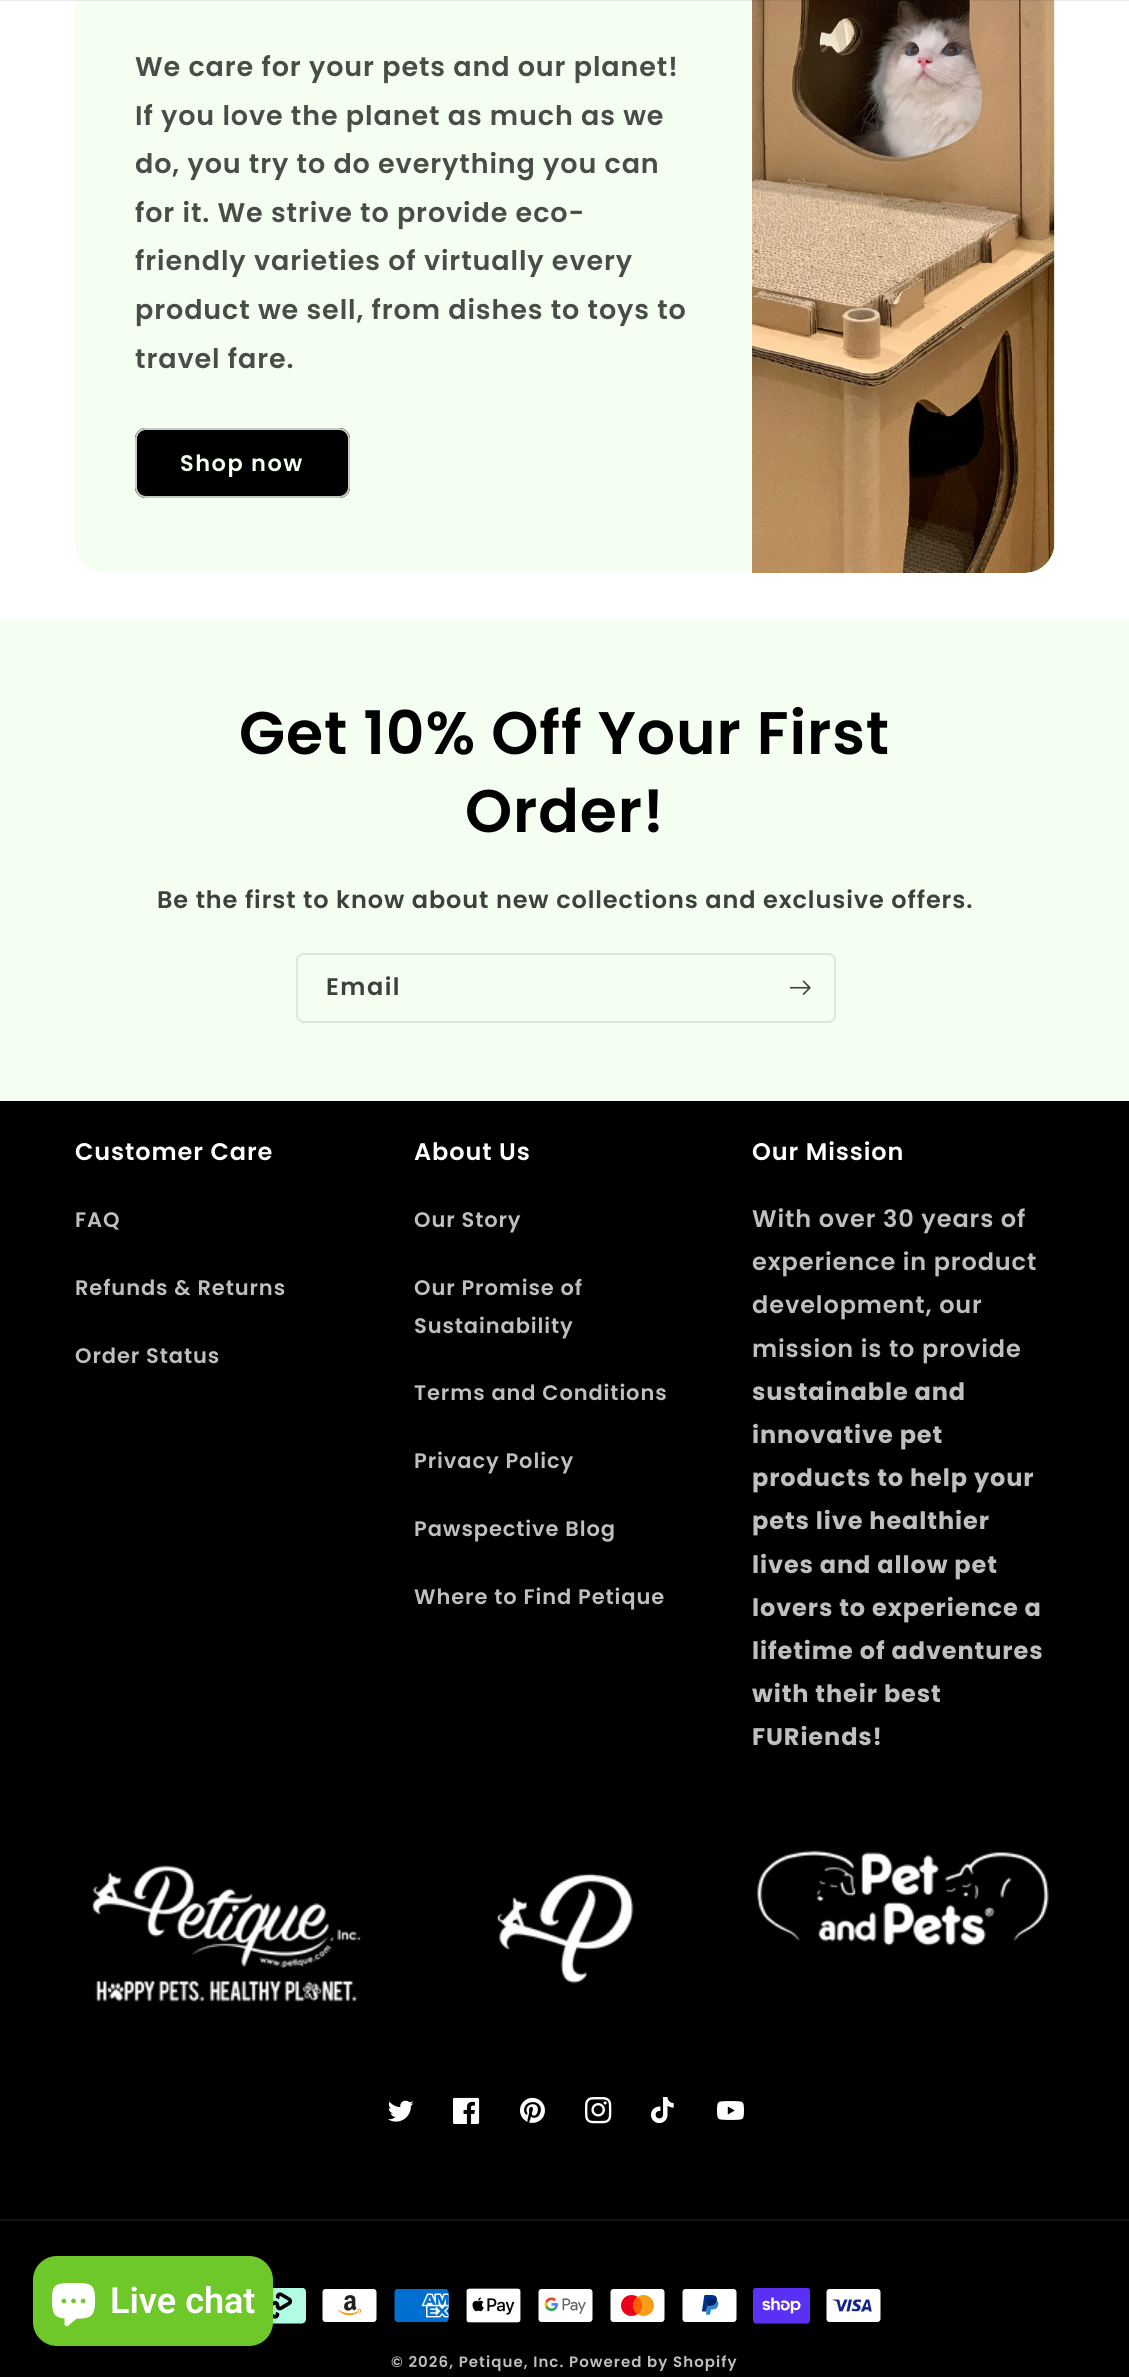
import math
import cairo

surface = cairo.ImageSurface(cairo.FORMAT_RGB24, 1129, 2377)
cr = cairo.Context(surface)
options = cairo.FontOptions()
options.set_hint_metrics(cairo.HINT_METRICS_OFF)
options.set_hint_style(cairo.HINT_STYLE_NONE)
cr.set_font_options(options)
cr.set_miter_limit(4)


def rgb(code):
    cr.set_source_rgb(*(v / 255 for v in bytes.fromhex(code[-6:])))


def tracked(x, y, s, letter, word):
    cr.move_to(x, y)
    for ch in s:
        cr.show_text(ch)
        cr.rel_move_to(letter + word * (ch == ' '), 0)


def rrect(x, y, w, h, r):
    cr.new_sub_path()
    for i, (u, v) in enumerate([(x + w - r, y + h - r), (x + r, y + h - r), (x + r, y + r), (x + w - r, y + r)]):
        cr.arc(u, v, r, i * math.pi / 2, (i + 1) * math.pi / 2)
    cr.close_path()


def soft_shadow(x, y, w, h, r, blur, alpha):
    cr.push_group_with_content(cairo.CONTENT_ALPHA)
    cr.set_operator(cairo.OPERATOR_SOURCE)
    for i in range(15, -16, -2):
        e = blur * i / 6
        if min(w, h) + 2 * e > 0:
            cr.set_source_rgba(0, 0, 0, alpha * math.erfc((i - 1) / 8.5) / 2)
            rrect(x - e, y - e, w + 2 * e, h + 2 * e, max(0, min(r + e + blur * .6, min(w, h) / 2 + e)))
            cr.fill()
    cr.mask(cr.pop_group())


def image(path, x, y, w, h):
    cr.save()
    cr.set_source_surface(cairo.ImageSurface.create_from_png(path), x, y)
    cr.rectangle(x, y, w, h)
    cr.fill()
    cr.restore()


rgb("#ffffff")
cr.paint()
rgb("#f4fff1")
cr.new_path()
cr.move_to(105, -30)
cr.line_to(752, -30)
cr.line_to(752, 573)
cr.line_to(105, 573)
cr.curve_to(88.5, 573, 75, 559.5, 75, 543)
cr.line_to(75, 0)
cr.curve_to(75, -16.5, 88.5, -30, 105, -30)
cr.close_path()
cr.fill()
cr.new_path()
cr.move_to(752, -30)
cr.line_to(1025, -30)
cr.curve_to(1041.5, -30, 1055, -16.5, 1055, 0)
cr.line_to(1055, 543)
cr.curve_to(1055, 559.5, 1041.5, 573, 1025, 573)
cr.line_to(752, 573)
cr.close_path()
cr.fill()
image("img/1.png", 752, 0, 303, 573)
cr.set_source_rgba(0, 0, 0, 0.08)
cr.rectangle(0, 0, 1129, 1)
cr.fill()
rgb("#000000")
rrect(135, 428, 215, 70, 11)
cr.fill()
rrect(136, 429, 213, 68, 10)
cr.stroke()
rrect(136, 429, 213, 68, 10)
cr.set_source_rgba(0.957, 1, 0.945, 0.8)
cr.stroke()
rgb("#f4fff1")
cr.rectangle(0, 621, 1129, 480)
cr.fill()
rrect(297, 954, 538, 68, 7)
rgb("#dce6d9")
cr.stroke()
image("img/2.png", 789, 980, 22, 15)
rgb("#000000")
cr.rectangle(0, 1101, 1129, 1276)
cr.fill()
image("img/3.png", 92, 1865, 269, 137)
image("img/4.png", 496, 1873, 138, 111)
image("img/5.png", 757, 1850, 292, 96)
image("img/6.png", 388, 2100, 26, 22)
image("img/7.png", 453, 2097, 27, 27)
image("img/8.png", 520, 2097, 25, 26)
image("img/9.png", 585, 2097, 27, 27)
image("img/10.png", 651, 2097, 23, 27)
image("img/11.png", 717, 2101, 27, 19)
rgb("#141414")
cr.rectangle(0, 2219, 1129, 2)
cr.fill()
image("img/12.png", 272, 2288, 34, 36)
image("img/13.png", 322, 2289, 55, 33)
image("img/14.png", 394, 2289, 55, 33)
image("img/15.png", 466, 2288, 55, 35)
image("img/16.png", 538, 2289, 55, 33)
image("img/17.png", 610, 2289, 55, 33)
image("img/18.png", 682, 2289, 55, 33)
image("img/19.png", 753, 2288, 57, 36)
image("img/20.png", 826, 2289, 55, 33)
rgb("#000000")
soft_shadow(33, 2256, 240, 90, 24, 4, 0.15)
rgb("#6ec829")
rrect(33, 2256, 240, 90, 24)
cr.fill()
image("img/21.png", 51, 2283, 45, 44)
cr.select_font_face("Poppins SemiBold")
cr.set_font_size(27)
rgb("#494d48")
for x, y, s in [
    (135, 76, "We care for your pets and our planet!"),
    (135, 125, "If you love the planet as much as we"),
    (135, 173, "do, you try to do everything you can"),
    (135, 222, "for it. We strive to provide eco-"),
    (135, 270, "friendly varieties of virtually every"),
    (135, 319, "product we sell, from dishes to toys to"),
    (135, 368, "travel fare."),
]:
    tracked(x, y, s, 0.9, 0)
cr.set_font_size(22.5)
rgb("#f4fff1")
tracked(180, 471, "Shop now", 1.5, 0)
cr.set_font_size(60)
rgb("#000000")
tracked(239, 754, "Get 10% Off Your First", 0.9, 0)
tracked(465, 832, "Order!", 0.9, 0)
cr.set_font_size(24)
rgb("#3d403c")
tracked(157, 908, "Be the first to know about new collections and exclusive offers.", 0.9, 0)
tracked(326, 995, "Email", 1.5, 0)
rgb("#ffffff")
tracked(75, 1160, "Customer Care", 0.9, 0)
cr.set_font_size(21)
rgb("#bfbfbf")
for x, y, s in [
    (75, 1227, "FAQ"),
    (75, 1295, "Refunds & Returns"),
    (75, 1363, "Order Status"),
]:
    tracked(x, y, s, 0.9, 0)
cr.set_font_size(24)
rgb("#ffffff")
tracked(414, 1160, "About Us", 0.9, 0)
cr.set_font_size(21)
rgb("#bfbfbf")
for x, y, s in [
    (414, 1227, "Our Story"),
    (414, 1295, "Our Promise of"),
    (414, 1333, "Sustainability"),
    (414, 1400, "Terms and Conditions"),
    (414, 1468, "Privacy Policy"),
    (414, 1536, "Pawspective Blog"),
    (414, 1604, "Where to Find Petique"),
]:
    tracked(x, y, s, 0.9, 0)
cr.set_font_size(24)
rgb("#ffffff")
tracked(752, 1160, "Our Mission", 0.9, 0)
rgb("#bfbfbf")
for x, y, s in [
    (752, 1227, "With over 30 years of"),
    (752, 1270, "experience in product"),
    (752, 1313, "development, our"),
    (752, 1357, "mission is to provide"),
]:
    tracked(x, y, s, 0.9, 0)
cr.select_font_face("Poppins", cairo.FONT_SLANT_NORMAL, cairo.FONT_WEIGHT_BOLD)
for x, y, s in [
    (752, 1400, "sustainable and"),
    (752, 1443, "innovative pet"),
    (752, 1486, "products to help your"),
    (752, 1529, "pets live healthier"),
    (752, 1573, "lives and allow pet"),
    (752, 1616, "lovers to experience a"),
    (752, 1659, "lifetime of adventures"),
    (752, 1702, "with their best"),
    (752, 1745, "FURiends!"),
]:
    tracked(x, y, s, 0.9, 0)
cr.select_font_face("Poppins SemiBold")
cr.set_font_size(15)
tracked(391, 2367, "© 2026, Petique, Inc. Powered by Shopify", 1.05, 0)
cr.select_font_face("Roboto SemiBold")
cr.set_font_size(36)
rgb("#ffffff")
cr.move_to(110, 2313)
cr.show_text("Live chat")
surface.write_to_png("page.png")
